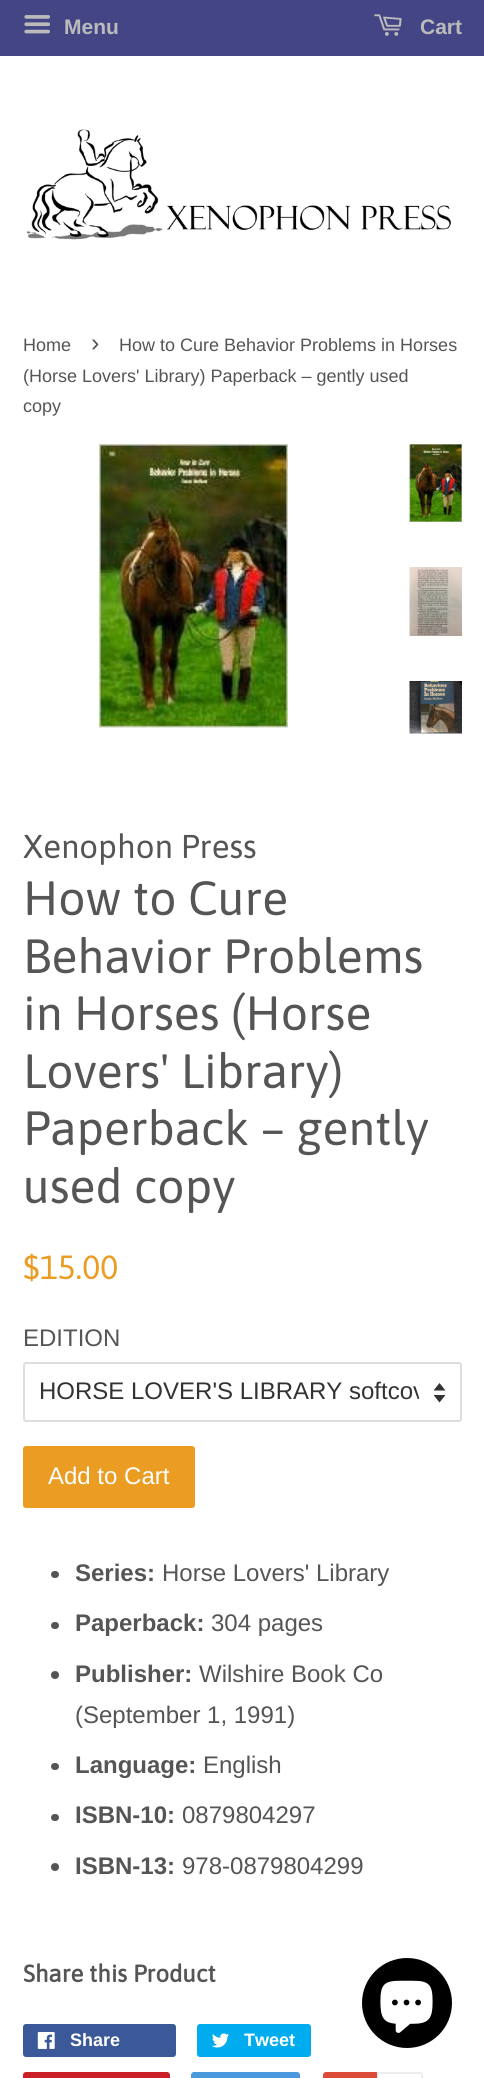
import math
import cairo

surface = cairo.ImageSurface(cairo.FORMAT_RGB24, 484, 2078)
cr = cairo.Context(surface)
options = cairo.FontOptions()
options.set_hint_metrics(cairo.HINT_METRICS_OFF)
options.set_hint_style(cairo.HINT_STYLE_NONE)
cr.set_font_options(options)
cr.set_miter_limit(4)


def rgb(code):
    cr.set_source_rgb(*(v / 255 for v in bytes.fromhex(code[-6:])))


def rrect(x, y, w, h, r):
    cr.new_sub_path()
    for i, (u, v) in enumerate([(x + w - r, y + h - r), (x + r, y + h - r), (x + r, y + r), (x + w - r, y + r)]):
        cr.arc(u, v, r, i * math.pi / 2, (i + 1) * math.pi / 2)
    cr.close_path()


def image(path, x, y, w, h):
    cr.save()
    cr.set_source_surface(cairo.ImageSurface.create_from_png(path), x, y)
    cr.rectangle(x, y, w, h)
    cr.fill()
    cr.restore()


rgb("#ffffff")
cr.paint()
rgb("#444585")
cr.rectangle(0, 0, 484, 56)
cr.fill()
image("img/1.png", 24, 15, 26, 19)
image("img/2.png", 374, 14, 28, 22)
image("img/3.png", 26, 129, 425, 111)
image("img/4.png", 99, 444, 189, 284)
image("img/5.png", 409, 444, 53, 78)
image("img/6.png", 409, 567, 53, 69)
image("img/7.png", 409, 681, 53, 53)
image("img/8.png", 434, 1383, 12, 20)
rrect(24, 1363, 437, 58, 2)
rgb("#dddddd")
cr.stroke()
rgb("#ea9c23")
rrect(23, 1446, 172, 62, 3)
cr.fill()
rgb("#555555")
rrect(51, 1571, 8, 7, 3.5)
cr.fill()
rrect(51, 1622, 8, 7, 3.5)
cr.fill()
cr.arc(55, 1675, 4, 0, 2 * math.pi)
cr.fill()
rrect(51, 1763, 8, 7, 3.5)
cr.fill()
rrect(51, 1814, 8, 7, 3.5)
cr.fill()
cr.arc(55, 1867, 4, 0, 2 * math.pi)
cr.fill()
rgb("#3b5998")
rrect(23, 2024, 153, 33, 3)
cr.fill()
image("img/9.png", 37, 2032, 18, 17)
rgb("#00aced")
rrect(197, 2024, 114, 33, 3)
cr.fill()
image("img/10.png", 212, 2033, 17, 15)
rgb("#cb2027")
rrect(23, 2072, 147, 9, 3)
cr.fill()
rgb("#4999dc")
rrect(191, 2072, 109, 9, 3)
cr.fill()
rgb("#dd4b39")
rrect(323, 2072, 97, 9, 3)
cr.fill()
rgb("#ffffff")
cr.new_path()
cr.move_to(378, 2073)
cr.line_to(420, 2073)
cr.curve_to(421, 2073, 422, 2074, 422, 2075)
cr.line_to(422, 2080)
cr.curve_to(422, 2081, 421, 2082, 420, 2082)
cr.line_to(378, 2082)
cr.close_path()
cr.fill_preserve()
rgb("#ececec")
cr.stroke()
rgb("#000000")
cr.arc(407, 2003, 45, 0, 2 * math.pi)
cr.fill()
image("img/11.png", 380, 1980, 53, 53)
cr.select_font_face("Liberation Sans", cairo.FONT_SLANT_NORMAL, cairo.FONT_WEIGHT_BOLD)
cr.set_font_size(21)
rgb("#bbbbbb")
cr.move_to(64, 34)
cr.show_text("Menu")
cr.move_to(420, 34)
cr.show_text("Cart")
cr.select_font_face("Liberation Sans")
cr.set_font_size(18)
rgb("#555555")
cr.move_to(23, 351)
cr.show_text("Home")
cr.set_font_size(25)
cr.move_to(91, 351)
cr.show_text("›")
cr.set_font_size(18)
for x, y, s in [
    (119, 351, "How to Cure Behavior Problems in Horses"),
    (23, 382, "(Horse Lovers' Library) Paperback – gently used"),
    (23, 412, "copy"),
]:
    cr.move_to(x, y)
    cr.show_text(s)
cr.select_font_face("Asap")
cr.set_font_size(33)
cr.move_to(23, 858)
cr.show_text("Xenophon Press")
cr.set_font_size(48)
for x, y, s in [
    (23, 915, "How to Cure"),
    (23, 973, "Behavior Problems"),
    (23, 1030, "in Horses (Horse"),
    (23, 1088, "Lovers' Library)"),
    (23, 1145, "Paperback – gently"),
    (23, 1203, "used copy"),
]:
    cr.move_to(x, y)
    cr.show_text(s)
cr.set_font_size(33.5)
rgb("#ea9c23")
cr.move_to(23, 1279)
cr.show_text("$15.00")
cr.select_font_face("Liberation Sans")
cr.set_font_size(24)
rgb("#555555")
cr.move_to(23, 1346)
cr.show_text("EDITION")
cr.save()
cr.rectangle(39, 1376, 380, 33)
cr.clip()
rgb("#333333")
cr.move_to(39, 1399)
cr.show_text("HORSE LOVER'S LIBRARY softcov")
cr.restore()
rgb("#ffffff")
cr.move_to(48, 1484)
cr.show_text("Add to Cart")
cr.select_font_face("Liberation Sans", cairo.FONT_SLANT_NORMAL, cairo.FONT_WEIGHT_BOLD)
rgb("#555555")
cr.move_to(75, 1581)
cr.show_text("Series:")
cr.select_font_face("Liberation Sans")
cr.move_to(162, 1581)
cr.show_text("Horse Lovers' Library")
cr.select_font_face("Liberation Sans", cairo.FONT_SLANT_NORMAL, cairo.FONT_WEIGHT_BOLD)
cr.move_to(75, 1631)
cr.show_text("Paperback:")
cr.select_font_face("Liberation Sans")
cr.move_to(211, 1631)
cr.show_text("304 pages")
cr.select_font_face("Liberation Sans", cairo.FONT_SLANT_NORMAL, cairo.FONT_WEIGHT_BOLD)
cr.move_to(75, 1682)
cr.show_text("Publisher:")
cr.select_font_face("Liberation Sans")
cr.move_to(199, 1682)
cr.show_text("Wilshire Book Co")
cr.move_to(75, 1723)
cr.show_text("(September 1, 1991)")
cr.select_font_face("Liberation Sans", cairo.FONT_SLANT_NORMAL, cairo.FONT_WEIGHT_BOLD)
cr.move_to(75, 1773)
cr.show_text("Language:")
cr.select_font_face("Liberation Sans")
cr.move_to(203, 1773)
cr.show_text("English")
cr.select_font_face("Liberation Sans", cairo.FONT_SLANT_NORMAL, cairo.FONT_WEIGHT_BOLD)
cr.move_to(75, 1823)
cr.show_text("ISBN-10:")
cr.select_font_face("Liberation Sans")
cr.move_to(182, 1823)
cr.show_text("0879804297")
cr.select_font_face("Liberation Sans", cairo.FONT_SLANT_NORMAL, cairo.FONT_WEIGHT_BOLD)
cr.move_to(75, 1874)
cr.show_text("ISBN-13:")
cr.select_font_face("Liberation Sans")
cr.move_to(182, 1874)
cr.show_text("978-0879804299")
cr.select_font_face("Asap", cairo.FONT_SLANT_NORMAL, cairo.FONT_WEIGHT_BOLD)
cr.move_to(23, 1982)
cr.show_text("Share this Product")
cr.select_font_face("Liberation Sans", cairo.FONT_SLANT_NORMAL, cairo.FONT_WEIGHT_BOLD)
cr.set_font_size(18)
rgb("#ffffff")
cr.move_to(70, 2046)
cr.show_text("Share")
cr.move_to(244, 2046)
cr.show_text("Tweet")
surface.write_to_png("page.png")
